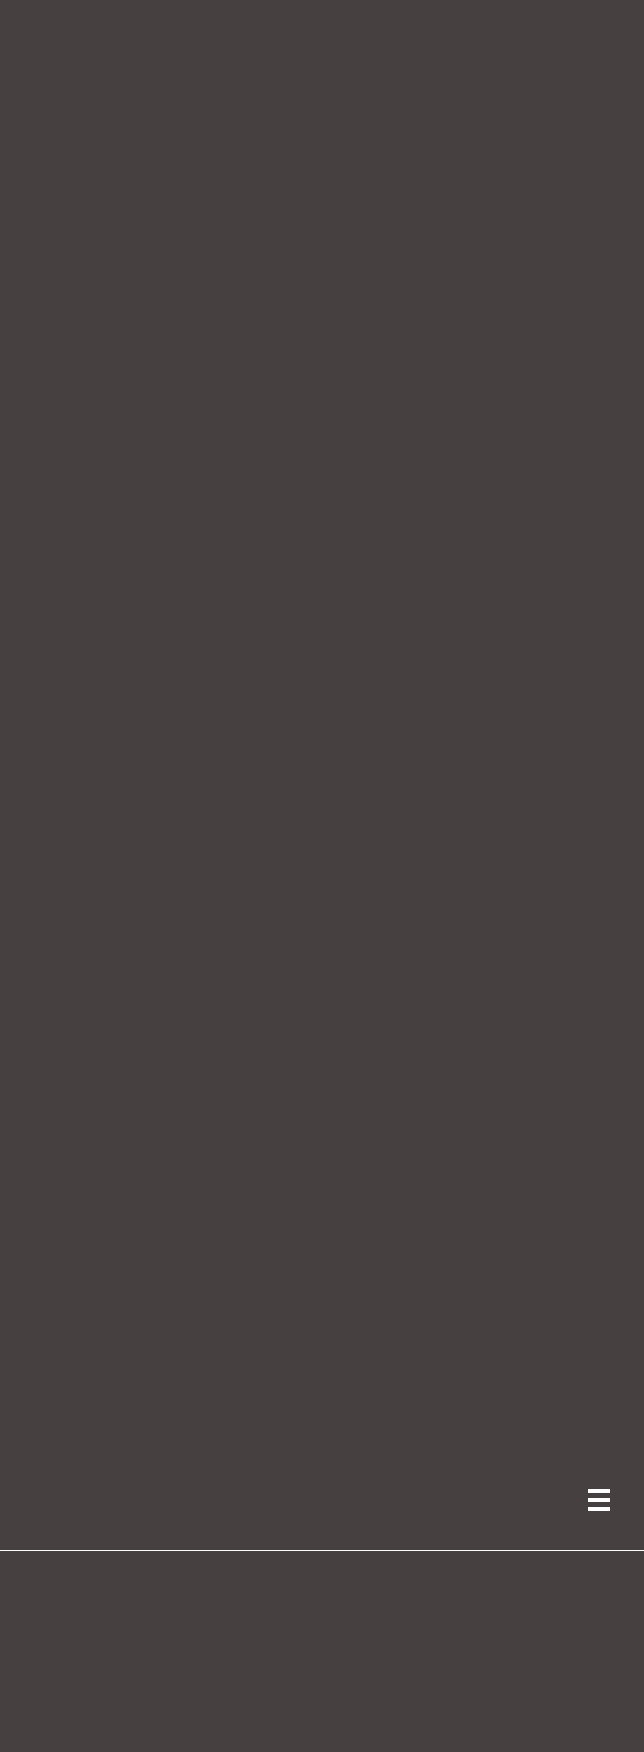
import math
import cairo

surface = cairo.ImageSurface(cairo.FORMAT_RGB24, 644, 1752)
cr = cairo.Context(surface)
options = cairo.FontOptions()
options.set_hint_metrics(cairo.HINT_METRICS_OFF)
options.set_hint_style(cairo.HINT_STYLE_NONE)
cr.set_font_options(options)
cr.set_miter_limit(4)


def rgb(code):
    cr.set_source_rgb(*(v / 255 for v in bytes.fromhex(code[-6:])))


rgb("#474041")
cr.paint()
for x, y, w, h, color in [
    (0, 1550, 644, 1, "#ffffff"),
    (588, 1489, 22, 4, "#ffffff"),
    (588, 1498, 22, 4, "#ffffff"),
    (588, 1507, 22, 4, "#ffffff"),
]:
    rgb(color)
    cr.rectangle(x, y, w, h)
    cr.fill()
surface.write_to_png("page.png")
